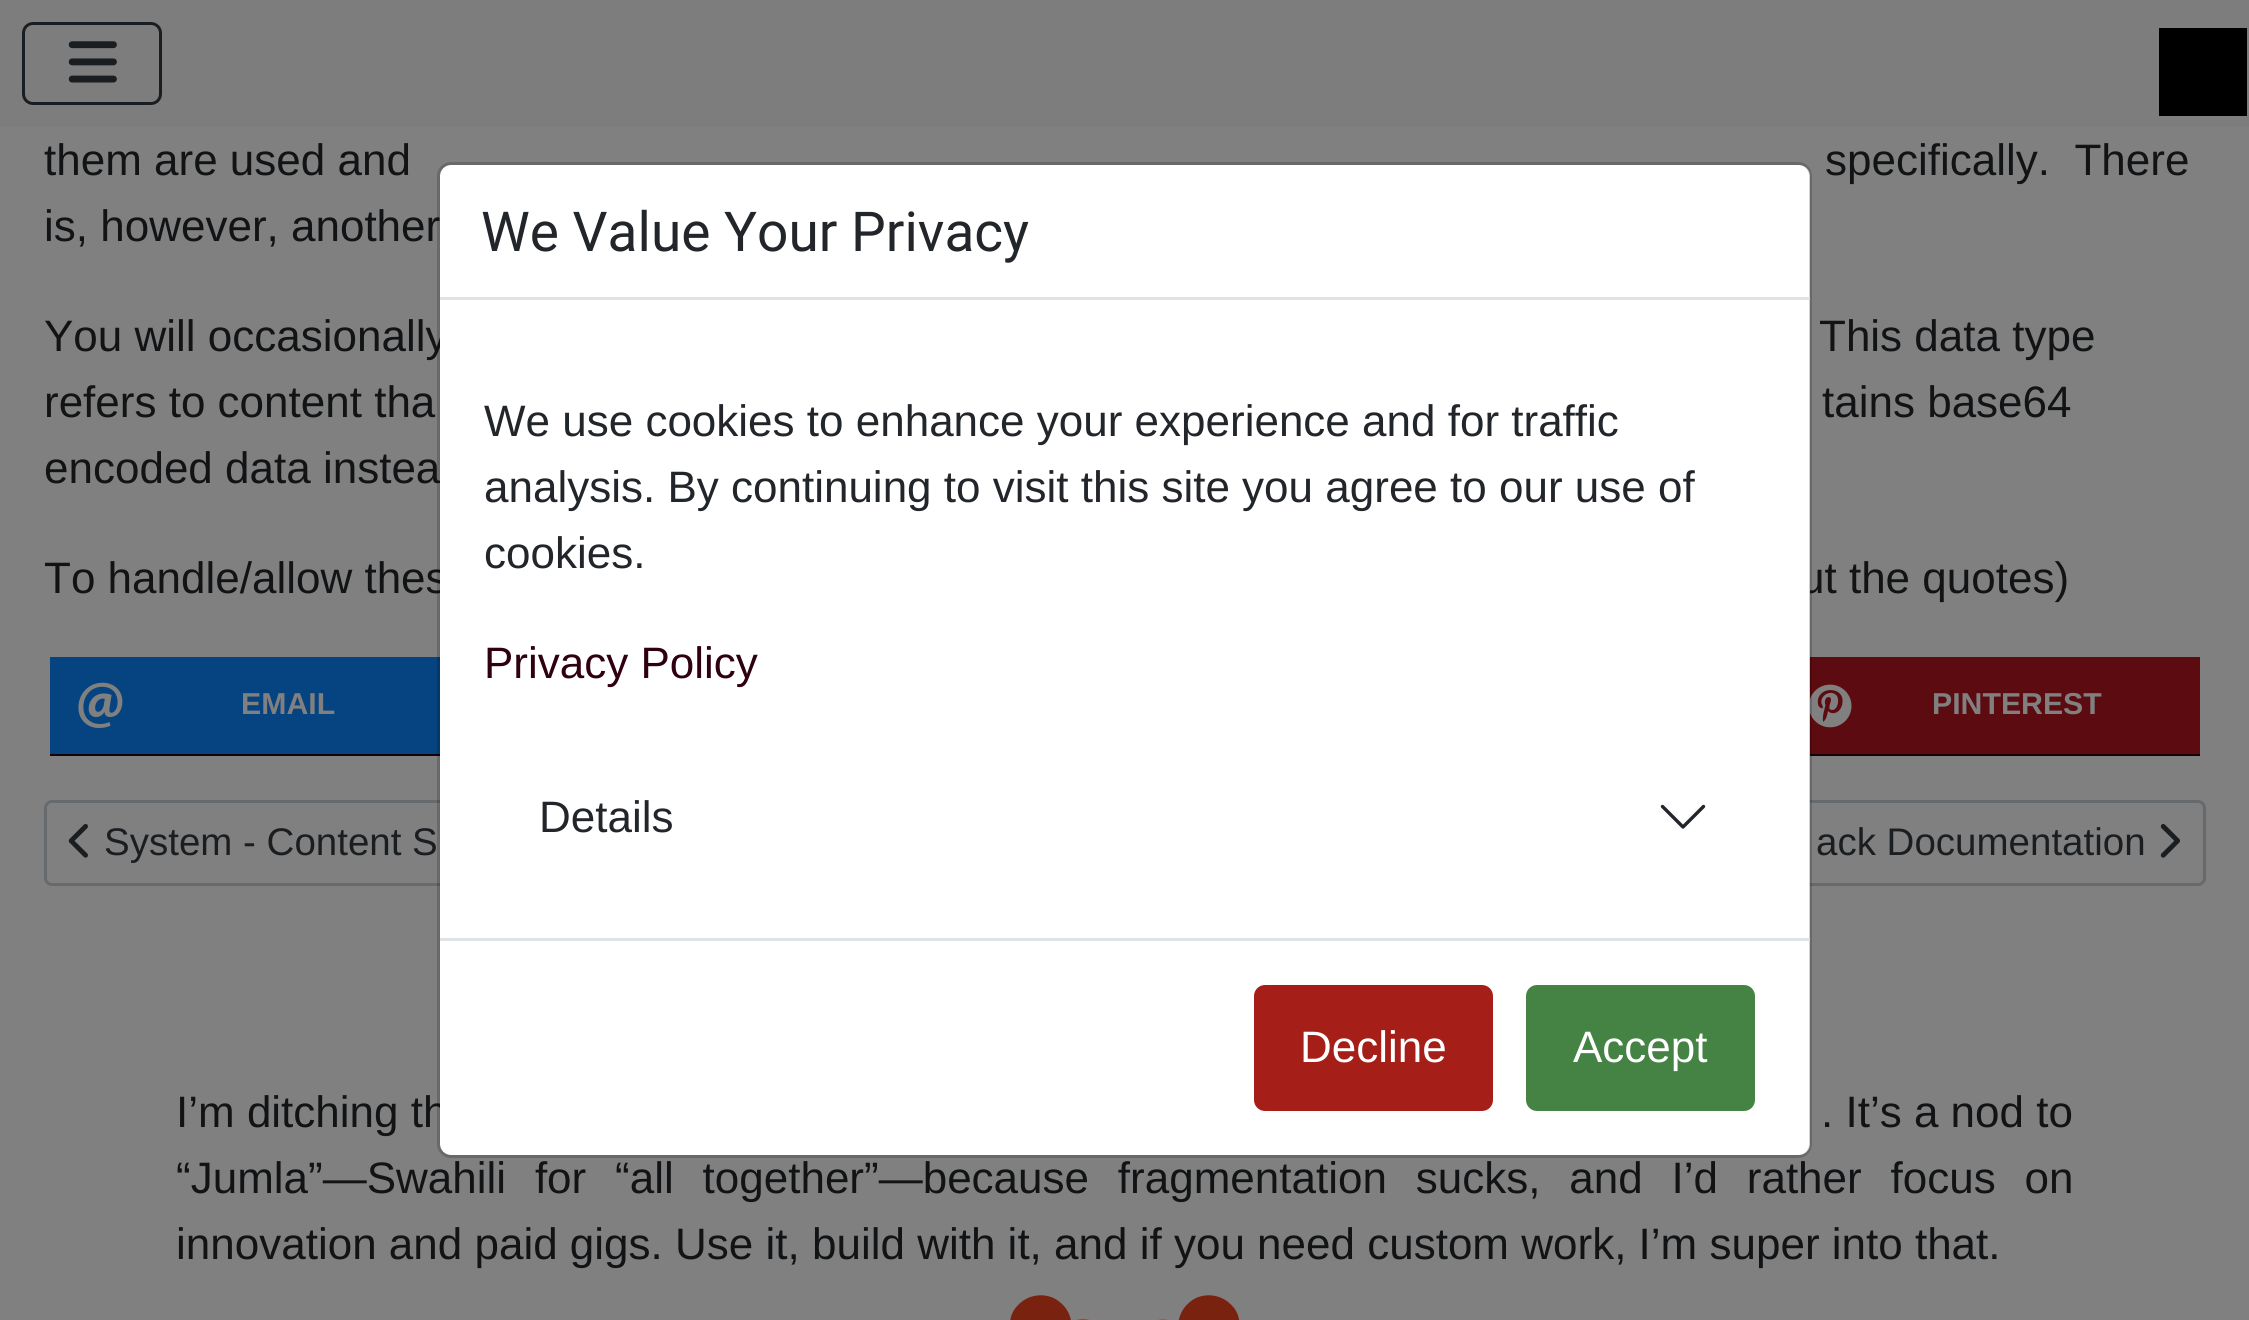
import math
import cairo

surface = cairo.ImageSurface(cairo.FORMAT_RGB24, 2249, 1320)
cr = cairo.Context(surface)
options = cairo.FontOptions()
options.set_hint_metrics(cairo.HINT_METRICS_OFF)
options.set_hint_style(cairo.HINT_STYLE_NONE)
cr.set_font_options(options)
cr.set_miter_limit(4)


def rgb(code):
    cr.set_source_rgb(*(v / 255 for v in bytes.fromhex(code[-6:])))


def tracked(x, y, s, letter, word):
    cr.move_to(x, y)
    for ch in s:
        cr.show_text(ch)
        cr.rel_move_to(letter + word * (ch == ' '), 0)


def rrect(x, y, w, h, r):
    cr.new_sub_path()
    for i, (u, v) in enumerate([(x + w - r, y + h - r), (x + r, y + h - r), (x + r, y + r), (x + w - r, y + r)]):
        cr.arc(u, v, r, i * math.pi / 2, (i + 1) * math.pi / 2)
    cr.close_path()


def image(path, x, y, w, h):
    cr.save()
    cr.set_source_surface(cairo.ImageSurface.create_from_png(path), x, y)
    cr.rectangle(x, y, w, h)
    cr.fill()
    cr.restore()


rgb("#808080")
cr.paint()
rgb("#7d7d7e")
cr.rectangle(0, 0, 2249, 127)
cr.fill()
rrect(23.5, 23.5, 137, 80, 9.5)
rgb("#1b1e21")
cr.set_line_width(3)
cr.stroke()
image("img/1.png", 68, 41, 49, 42)
for x, y, w, h, color in [
    (2159, 28, 88, 88, "#000000"),
    (50, 657, 390, 97, "#054480"),
    (50, 754, 390, 2, "#170008"),
]:
    rgb(color)
    cr.rectangle(x, y, w, h)
    cr.fill()
image("img/2.png", 78, 682, 45, 46)
rgb("#5c0b11")
cr.rectangle(1810, 657, 390, 97)
cr.fill()
rgb("#170008")
cr.rectangle(1810, 754, 390, 2)
cr.fill()
image("img/3.png", 1810, 684, 42, 44)
rrect(45.5, 801.5, 913, 83, 6.5)
rgb("#676a6d")
cr.stroke()
image("img/4.png", 68, 824, 20, 34)
rrect(1464.5, 801.5, 740, 83, 6.5)
cr.stroke()
image("img/5.png", 2160, 824, 20, 34)
image("img/6.png", 1010, 1295, 230, 25)
cr.select_font_face("Liberation Sans")
cr.set_font_size(44)
rgb("#111315")
for x, y, s in [
    (44, 175, "them are used and"),
    (1825, 175, "specifically.  There"),
    (44, 241, "is, however, another"),
    (44, 351, "You will occasionally"),
    (1819, 351, "This data type"),
    (44, 417, "refers to content tha"),
    (1822, 417, "tains base64"),
    (44, 483, "encoded data instea"),
    (44, 593, "To handle/allow thes"),
    (1800, 593, "ut the quotes)"),
]:
    cr.move_to(x, y)
    cr.show_text(s)
cr.select_font_face("Liberation Sans", cairo.FONT_SLANT_NORMAL, cairo.FONT_WEIGHT_BOLD)
cr.set_font_size(30.25)
rgb("#808080")
cr.move_to(241, 714)
cr.show_text("EMAIL")
cr.move_to(1932, 714)
cr.show_text("PINTEREST")
cr.select_font_face("Liberation Sans")
cr.set_font_size(38.5)
rgb("#1b1e21")
cr.move_to(104, 855)
cr.show_text("System - Content S")
cr.move_to(1816, 855)
cr.show_text("ack Documentation")
cr.set_font_size(44)
rgb("#111315")
cr.move_to(176, 1127)
cr.show_text("I’m ditching th")
cr.move_to(1821, 1127)
cr.show_text(". It’s a nod to")
tracked(176, 1193, "“Jumla”—Swahili for “all together”—because fragmentation sucks, and I’d rather focus on", 0, 16.6)
cr.move_to(176, 1259)
cr.show_text("innovation and paid gigs. Use it, build with it, and if you need custom work, I’m super into that.")
rgb("#ffffff")
rrect(440, 165, 1370, 990, 11)
cr.fill()
rrect(438.5, 163.5, 1372, 993, 12.5)
cr.set_source_rgba(0, 0, 0, 0.18)
cr.stroke()
rgb("#dfe3e7")
cr.rectangle(440, 297, 1370, 3)
cr.fill()
cr.select_font_face("Roboto")
cr.set_font_size(55)
rgb("#22262a")
cr.move_to(481, 251)
cr.show_text("We Value Your Privacy")
cr.select_font_face("Liberation Sans")
cr.set_font_size(44)
for x, y, s in [
    (484, 436, "We use cookies to enhance your experience and for traffic"),
    (484, 502, "analysis. By continuing to visit this site you agree to our use of"),
    (484, 568, "cookies."),
]:
    cr.move_to(x, y)
    cr.show_text(s)
rgb("#2e0010")
cr.move_to(484, 678)
cr.show_text("Privacy Policy")
rgb("#22262a")
cr.move_to(539, 832)
cr.show_text("Details")
cr.new_path()
cr.move_to(1662.5, 806.5)
cr.line_to(1683, 827)
cr.line_to(1703.5, 806.5)
cr.set_line_width(3.4)
cr.set_line_cap(cairo.LINE_CAP_ROUND)
cr.set_line_join(cairo.LINE_JOIN_ROUND)
cr.stroke()
rgb("#dfe3e7")
cr.rectangle(440, 938, 1370, 3)
cr.fill()
rgb("#a51f18")
rrect(1255.5, 986.5, 236, 123, 9.5)
cr.fill_preserve()
cr.set_line_width(3)
cr.set_line_cap(cairo.LINE_CAP_BUTT)
cr.set_line_join(cairo.LINE_JOIN_MITER)
cr.stroke()
rgb("#ffffff")
cr.move_to(1300, 1062)
cr.show_text("Decline")
rgb("#448344")
rrect(1527.5, 986.5, 226, 123, 9.5)
cr.fill_preserve()
cr.stroke()
rgb("#ffffff")
cr.move_to(1573, 1062)
cr.show_text("Accept")
surface.write_to_png("page.png")
